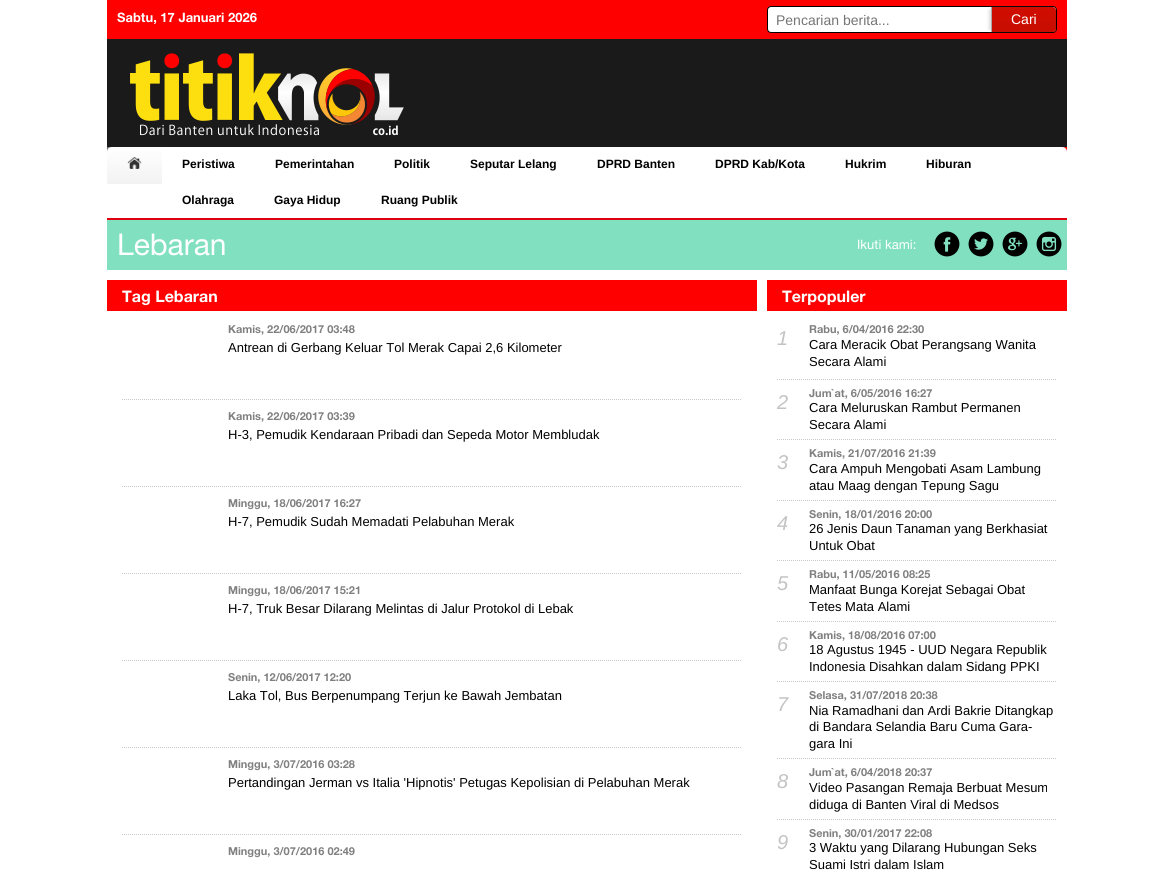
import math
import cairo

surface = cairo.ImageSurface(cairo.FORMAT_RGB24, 1173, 871)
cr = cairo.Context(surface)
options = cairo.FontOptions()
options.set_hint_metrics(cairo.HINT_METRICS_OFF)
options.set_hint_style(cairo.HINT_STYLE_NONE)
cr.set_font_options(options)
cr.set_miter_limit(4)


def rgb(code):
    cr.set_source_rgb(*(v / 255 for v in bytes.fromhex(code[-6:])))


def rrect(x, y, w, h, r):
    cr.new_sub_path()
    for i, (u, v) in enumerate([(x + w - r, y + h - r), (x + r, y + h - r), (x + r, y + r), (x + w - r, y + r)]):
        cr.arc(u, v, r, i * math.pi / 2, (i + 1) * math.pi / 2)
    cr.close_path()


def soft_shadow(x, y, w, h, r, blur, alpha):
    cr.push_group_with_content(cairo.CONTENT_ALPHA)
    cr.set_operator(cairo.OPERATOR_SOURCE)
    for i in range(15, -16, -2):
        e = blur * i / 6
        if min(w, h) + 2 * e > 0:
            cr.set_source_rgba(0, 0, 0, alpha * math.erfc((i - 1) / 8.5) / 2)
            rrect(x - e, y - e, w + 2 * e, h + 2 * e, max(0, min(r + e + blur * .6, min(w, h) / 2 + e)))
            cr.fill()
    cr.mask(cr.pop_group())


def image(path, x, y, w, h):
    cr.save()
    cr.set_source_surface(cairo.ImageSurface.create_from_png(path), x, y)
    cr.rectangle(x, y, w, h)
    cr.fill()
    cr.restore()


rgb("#ffffff")
cr.paint()
rgb("#1a1a1a")
cr.rectangle(107, 39, 960, 108)
cr.fill()
rgb("#ff0000")
cr.rectangle(107, 0, 960, 39)
cr.fill()
rgb("#ffffff")
rrect(767.5, 6.5, 289, 26, 3.5)
cr.fill_preserve()
rgb("#000000")
cr.set_line_width(1)
cr.stroke()
rgb("#dddddd")
soft_shadow(989, 9, 61, 21, 1, 1.5, 1)
gradient = cairo.LinearGradient(992, 7, 992, 32)
gradient.add_color_stop_rgba(0, 0.816, 0.051, 0, 1)
gradient.add_color_stop_rgba(1, 0.784, 0.051, 0.004, 1)
cr.set_source(gradient)
cr.new_path()
cr.move_to(991, 7)
cr.line_to(1053, 7)
cr.curve_to(1054.5, 7, 1056, 8.5, 1056, 10)
cr.line_to(1056, 30)
cr.curve_to(1056, 31, 1055, 32, 1054, 32)
cr.line_to(991, 32)
cr.close_path()
cr.fill()
rgb("#aaaaaa")
cr.rectangle(991, 7, 1, 25)
cr.fill()
image("img/1.png", 130, 53, 274, 83)
rgb("#ff0000")
cr.rectangle(1062, 147, 5, 5)
cr.fill()
rgb("#ffffff")
cr.new_path()
cr.move_to(112, 147)
cr.line_to(1062, 147)
cr.curve_to(1065, 147, 1067, 149, 1067, 152)
cr.line_to(1067, 220)
cr.line_to(107, 220)
cr.line_to(107, 152)
cr.curve_to(107, 149, 109, 147, 112, 147)
cr.close_path()
cr.fill()
rgb("#db000b")
cr.rectangle(107, 218, 960, 2)
cr.fill()
rgb("#717171")
cr.rectangle(107, 147, 5, 5)
cr.fill()
gradient = cairo.LinearGradient(135, 147, 135, 184)
gradient.add_color_stop_rgba(0, 1, 1, 1, 1)
gradient.add_color_stop_rgba(1, 0.949, 0.949, 0.949, 1)
cr.set_source(gradient)
cr.new_path()
cr.move_to(112, 147)
cr.line_to(162, 147)
cr.line_to(162, 184)
cr.line_to(107, 184)
cr.line_to(107, 152)
cr.curve_to(107, 149, 109, 147, 112, 147)
cr.close_path()
cr.fill()
image("img/2.png", 127, 157, 15, 12)
rgb("#80e0c0")
cr.rectangle(107, 220, 960, 50)
cr.fill()
image("img/3.png", 934, 231, 26, 26)
image("img/4.png", 968, 231, 26, 26)
image("img/5.png", 1002, 231, 26, 26)
image("img/6.png", 1036, 231, 26, 26)
rgb("#ff0000")
cr.rectangle(107, 280, 650, 31)
cr.fill()
cr.new_path()
cr.move_to(122, 399.5)
cr.line_to(742, 399.5)
rgb("#c9c9c9")
cr.set_dash([1, 1])
cr.stroke()
cr.new_path()
cr.move_to(122, 486.5)
cr.line_to(742, 486.5)
cr.stroke()
cr.new_path()
cr.move_to(122, 573.5)
cr.line_to(742, 573.5)
cr.stroke()
cr.new_path()
cr.move_to(122, 660.5)
cr.line_to(742, 660.5)
cr.stroke()
cr.new_path()
cr.move_to(122, 747.5)
cr.line_to(742, 747.5)
cr.stroke()
cr.new_path()
cr.move_to(122, 834.5)
cr.line_to(742, 834.5)
cr.stroke()
rgb("#ff0000")
cr.rectangle(767, 280, 300, 31)
cr.fill()
cr.new_path()
cr.move_to(777, 379.5)
cr.line_to(1057, 379.5)
rgb("#c9c9c9")
cr.stroke()
cr.new_path()
cr.move_to(777, 439.5)
cr.line_to(1057, 439.5)
cr.stroke()
cr.new_path()
cr.move_to(777, 500.5)
cr.line_to(1057, 500.5)
cr.stroke()
cr.new_path()
cr.move_to(777, 560.5)
cr.line_to(1057, 560.5)
cr.stroke()
cr.new_path()
cr.move_to(777, 621.5)
cr.line_to(1057, 621.5)
cr.stroke()
cr.new_path()
cr.move_to(777, 681.5)
cr.line_to(1057, 681.5)
cr.stroke()
cr.new_path()
cr.move_to(777, 758.5)
cr.line_to(1057, 758.5)
cr.stroke()
cr.new_path()
cr.move_to(777, 819.5)
cr.line_to(1057, 819.5)
cr.stroke()
cr.select_font_face("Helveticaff", cairo.FONT_SLANT_NORMAL, cairo.FONT_WEIGHT_BOLD)
cr.set_font_size(13)
rgb("#ffffff")
cr.move_to(117, 22)
cr.show_text("Sabtu, 17 Januari 2026")
cr.select_font_face("Liberation Sans")
cr.set_font_size(14)
rgb("#757575")
cr.move_to(776, 25)
cr.show_text("Pencarian berita...")
rgb("#ffffff")
cr.move_to(1011, 24)
cr.show_text("Cari")
cr.select_font_face("Liberation Sans", cairo.FONT_SLANT_NORMAL, cairo.FONT_WEIGHT_BOLD)
cr.set_font_size(12)
rgb("#000000")
for x, y, s in [
    (182, 168, "Peristiwa"),
    (275, 168, "Pemerintahan"),
    (394, 168, "Politik"),
    (470, 168, "Seputar Lelang"),
    (597, 168, "DPRD Banten"),
    (715, 168, "DPRD Kab/Kota"),
    (845, 168, "Hukrim"),
    (926, 168, "Hiburan"),
    (182, 204, "Olahraga"),
    (274, 204, "Gaya Hidup"),
    (381, 204, "Ruang Publik"),
]:
    cr.move_to(x, y)
    cr.show_text(s)
cr.select_font_face("Helveticaff")
cr.set_font_size(30)
rgb("#ffffff")
cr.move_to(117, 255)
cr.show_text("Lebaran")
cr.set_font_size(13)
cr.move_to(857, 249)
cr.show_text("Ikuti kami:")
cr.select_font_face("Helveticaff", cairo.FONT_SLANT_NORMAL, cairo.FONT_WEIGHT_BOLD)
cr.set_font_size(16)
cr.move_to(122, 302)
cr.show_text("Tag Lebaran")
cr.set_font_size(11)
rgb("#808080")
cr.move_to(228, 333)
cr.show_text("Kamis, 22/06/2017 03:48")
cr.select_font_face("Liberation Sans")
cr.set_font_size(13)
rgb("#000000")
cr.move_to(228, 352)
cr.show_text("Antrean di Gerbang Keluar Tol Merak Capai 2,6 Kilometer")
cr.select_font_face("Helveticaff", cairo.FONT_SLANT_NORMAL, cairo.FONT_WEIGHT_BOLD)
cr.set_font_size(11)
rgb("#808080")
cr.move_to(228, 420)
cr.show_text("Kamis, 22/06/2017 03:39")
cr.select_font_face("Liberation Sans")
cr.set_font_size(13)
rgb("#000000")
cr.move_to(228, 439)
cr.show_text("H-3, Pemudik Kendaraan Pribadi dan Sepeda Motor Membludak")
cr.select_font_face("Helveticaff", cairo.FONT_SLANT_NORMAL, cairo.FONT_WEIGHT_BOLD)
cr.set_font_size(11)
rgb("#808080")
cr.move_to(228, 507)
cr.show_text("Minggu, 18/06/2017 16:27")
cr.select_font_face("Liberation Sans")
cr.set_font_size(13)
rgb("#000000")
cr.move_to(228, 526)
cr.show_text("H-7, Pemudik Sudah Memadati Pelabuhan Merak")
cr.select_font_face("Helveticaff", cairo.FONT_SLANT_NORMAL, cairo.FONT_WEIGHT_BOLD)
cr.set_font_size(11)
rgb("#808080")
cr.move_to(228, 594)
cr.show_text("Minggu, 18/06/2017 15:21")
cr.select_font_face("Liberation Sans")
cr.set_font_size(13)
rgb("#000000")
cr.move_to(228, 613)
cr.show_text("H-7, Truk Besar Dilarang Melintas di Jalur Protokol di Lebak")
cr.select_font_face("Helveticaff", cairo.FONT_SLANT_NORMAL, cairo.FONT_WEIGHT_BOLD)
cr.set_font_size(11)
rgb("#808080")
cr.move_to(228, 681)
cr.show_text("Senin, 12/06/2017 12:20")
cr.select_font_face("Liberation Sans")
cr.set_font_size(13)
rgb("#000000")
cr.move_to(228, 700)
cr.show_text("Laka Tol, Bus Berpenumpang Terjun ke Bawah Jembatan")
cr.select_font_face("Helveticaff", cairo.FONT_SLANT_NORMAL, cairo.FONT_WEIGHT_BOLD)
cr.set_font_size(11)
rgb("#808080")
cr.move_to(228, 768)
cr.show_text("Minggu, 3/07/2016 03:28")
cr.select_font_face("Liberation Sans")
cr.set_font_size(13)
rgb("#000000")
cr.move_to(228, 787)
cr.show_text("Pertandingan Jerman vs Italia 'Hipnotis' Petugas Kepolisian di Pelabuhan Merak")
cr.select_font_face("Helveticaff", cairo.FONT_SLANT_NORMAL, cairo.FONT_WEIGHT_BOLD)
cr.set_font_size(11)
rgb("#808080")
cr.move_to(228, 855)
cr.show_text("Minggu, 3/07/2016 02:49")
cr.set_font_size(16)
rgb("#ffffff")
cr.move_to(782, 302)
cr.show_text("Terpopuler")
cr.select_font_face("Liberation Sans", cairo.FONT_SLANT_ITALIC)
cr.set_font_size(20)
rgb("#c4c3c3")
cr.move_to(777, 345)
cr.show_text("1")
cr.select_font_face("Helveticaff", cairo.FONT_SLANT_NORMAL, cairo.FONT_WEIGHT_BOLD)
cr.set_font_size(11)
rgb("#808080")
cr.move_to(809, 333)
cr.show_text("Rabu, 6/04/2016 22:30")
cr.select_font_face("Liberation Sans")
cr.set_font_size(13)
rgb("#000000")
cr.move_to(809, 349)
cr.show_text("Cara Meracik Obat Perangsang Wanita")
cr.move_to(809, 366)
cr.show_text("Secara Alami")
cr.select_font_face("Liberation Sans", cairo.FONT_SLANT_ITALIC)
cr.set_font_size(20)
rgb("#c4c3c3")
cr.move_to(777, 409)
cr.show_text("2")
cr.select_font_face("Helveticaff", cairo.FONT_SLANT_NORMAL, cairo.FONT_WEIGHT_BOLD)
cr.set_font_size(11)
rgb("#808080")
cr.move_to(809, 397)
cr.show_text("Jum`at, 6/05/2016 16:27")
cr.select_font_face("Liberation Sans")
cr.set_font_size(13)
rgb("#000000")
cr.move_to(809, 412)
cr.show_text("Cara Meluruskan Rambut Permanen")
cr.move_to(809, 429)
cr.show_text("Secara Alami")
cr.select_font_face("Liberation Sans", cairo.FONT_SLANT_ITALIC)
cr.set_font_size(20)
rgb("#c4c3c3")
cr.move_to(777, 469)
cr.show_text("3")
cr.select_font_face("Helveticaff", cairo.FONT_SLANT_NORMAL, cairo.FONT_WEIGHT_BOLD)
cr.set_font_size(11)
rgb("#808080")
cr.move_to(809, 457)
cr.show_text("Kamis, 21/07/2016 21:39")
cr.select_font_face("Liberation Sans")
cr.set_font_size(13)
rgb("#000000")
cr.move_to(809, 473)
cr.show_text("Cara Ampuh Mengobati Asam Lambung")
cr.move_to(809, 490)
cr.show_text("atau Maag dengan Tepung Sagu")
cr.select_font_face("Liberation Sans", cairo.FONT_SLANT_ITALIC)
cr.set_font_size(20)
rgb("#c4c3c3")
cr.move_to(777, 530)
cr.show_text("4")
cr.select_font_face("Helveticaff", cairo.FONT_SLANT_NORMAL, cairo.FONT_WEIGHT_BOLD)
cr.set_font_size(11)
rgb("#808080")
cr.move_to(809, 518)
cr.show_text("Senin, 18/01/2016 20:00")
cr.select_font_face("Liberation Sans")
cr.set_font_size(13)
rgb("#000000")
cr.move_to(809, 533)
cr.show_text("26 Jenis Daun Tanaman yang Berkhasiat")
cr.move_to(809, 550)
cr.show_text("Untuk Obat")
cr.select_font_face("Liberation Sans", cairo.FONT_SLANT_ITALIC)
cr.set_font_size(20)
rgb("#c4c3c3")
cr.move_to(777, 590)
cr.show_text("5")
cr.select_font_face("Helveticaff", cairo.FONT_SLANT_NORMAL, cairo.FONT_WEIGHT_BOLD)
cr.set_font_size(11)
rgb("#808080")
cr.move_to(809, 578)
cr.show_text("Rabu, 11/05/2016 08:25")
cr.select_font_face("Liberation Sans")
cr.set_font_size(13)
rgb("#000000")
cr.move_to(809, 594)
cr.show_text("Manfaat Bunga Korejat Sebagai Obat")
cr.move_to(809, 611)
cr.show_text("Tetes Mata Alami")
cr.select_font_face("Liberation Sans", cairo.FONT_SLANT_ITALIC)
cr.set_font_size(20)
rgb("#c4c3c3")
cr.move_to(777, 651)
cr.show_text("6")
cr.select_font_face("Helveticaff", cairo.FONT_SLANT_NORMAL, cairo.FONT_WEIGHT_BOLD)
cr.set_font_size(11)
rgb("#808080")
cr.move_to(809, 639)
cr.show_text("Kamis, 18/08/2016 07:00")
cr.select_font_face("Liberation Sans")
cr.set_font_size(13)
rgb("#000000")
cr.move_to(809, 654)
cr.show_text("18 Agustus 1945 - UUD Negara Republik")
cr.move_to(809, 671)
cr.show_text("Indonesia Disahkan dalam Sidang PPKI")
cr.select_font_face("Liberation Sans", cairo.FONT_SLANT_ITALIC)
cr.set_font_size(20)
rgb("#c4c3c3")
cr.move_to(777, 711)
cr.show_text("7")
cr.select_font_face("Helveticaff", cairo.FONT_SLANT_NORMAL, cairo.FONT_WEIGHT_BOLD)
cr.set_font_size(11)
rgb("#808080")
cr.move_to(809, 699)
cr.show_text("Selasa, 31/07/2018 20:38")
cr.select_font_face("Liberation Sans")
cr.set_font_size(13)
rgb("#000000")
for x, y, s in [
    (809, 715, "Nia Ramadhani dan Ardi Bakrie Ditangkap"),
    (809, 731, "di Bandara Selandia Baru Cuma Gara-"),
    (809, 748, "gara Ini"),
]:
    cr.move_to(x, y)
    cr.show_text(s)
cr.select_font_face("Liberation Sans", cairo.FONT_SLANT_ITALIC)
cr.set_font_size(20)
rgb("#c4c3c3")
cr.move_to(777, 788)
cr.show_text("8")
cr.select_font_face("Helveticaff", cairo.FONT_SLANT_NORMAL, cairo.FONT_WEIGHT_BOLD)
cr.set_font_size(11)
rgb("#808080")
cr.move_to(809, 776)
cr.show_text("Jum`at, 6/04/2018 20:37")
cr.select_font_face("Liberation Sans")
cr.set_font_size(13)
rgb("#000000")
cr.move_to(809, 792)
cr.show_text("Video Pasangan Remaja Berbuat Mesum")
cr.move_to(809, 809)
cr.show_text("diduga di Banten Viral di Medsos")
cr.select_font_face("Liberation Sans", cairo.FONT_SLANT_ITALIC)
cr.set_font_size(20)
rgb("#c4c3c3")
cr.move_to(777, 849)
cr.show_text("9")
cr.select_font_face("Helveticaff", cairo.FONT_SLANT_NORMAL, cairo.FONT_WEIGHT_BOLD)
cr.set_font_size(11)
rgb("#808080")
cr.move_to(809, 837)
cr.show_text("Senin, 30/01/2017 22:08")
cr.select_font_face("Liberation Sans")
cr.set_font_size(13)
rgb("#000000")
cr.move_to(809, 852)
cr.show_text("3 Waktu yang Dilarang Hubungan Seks")
cr.move_to(809, 869)
cr.show_text("Suami Istri dalam Islam")
surface.write_to_png("page.png")
